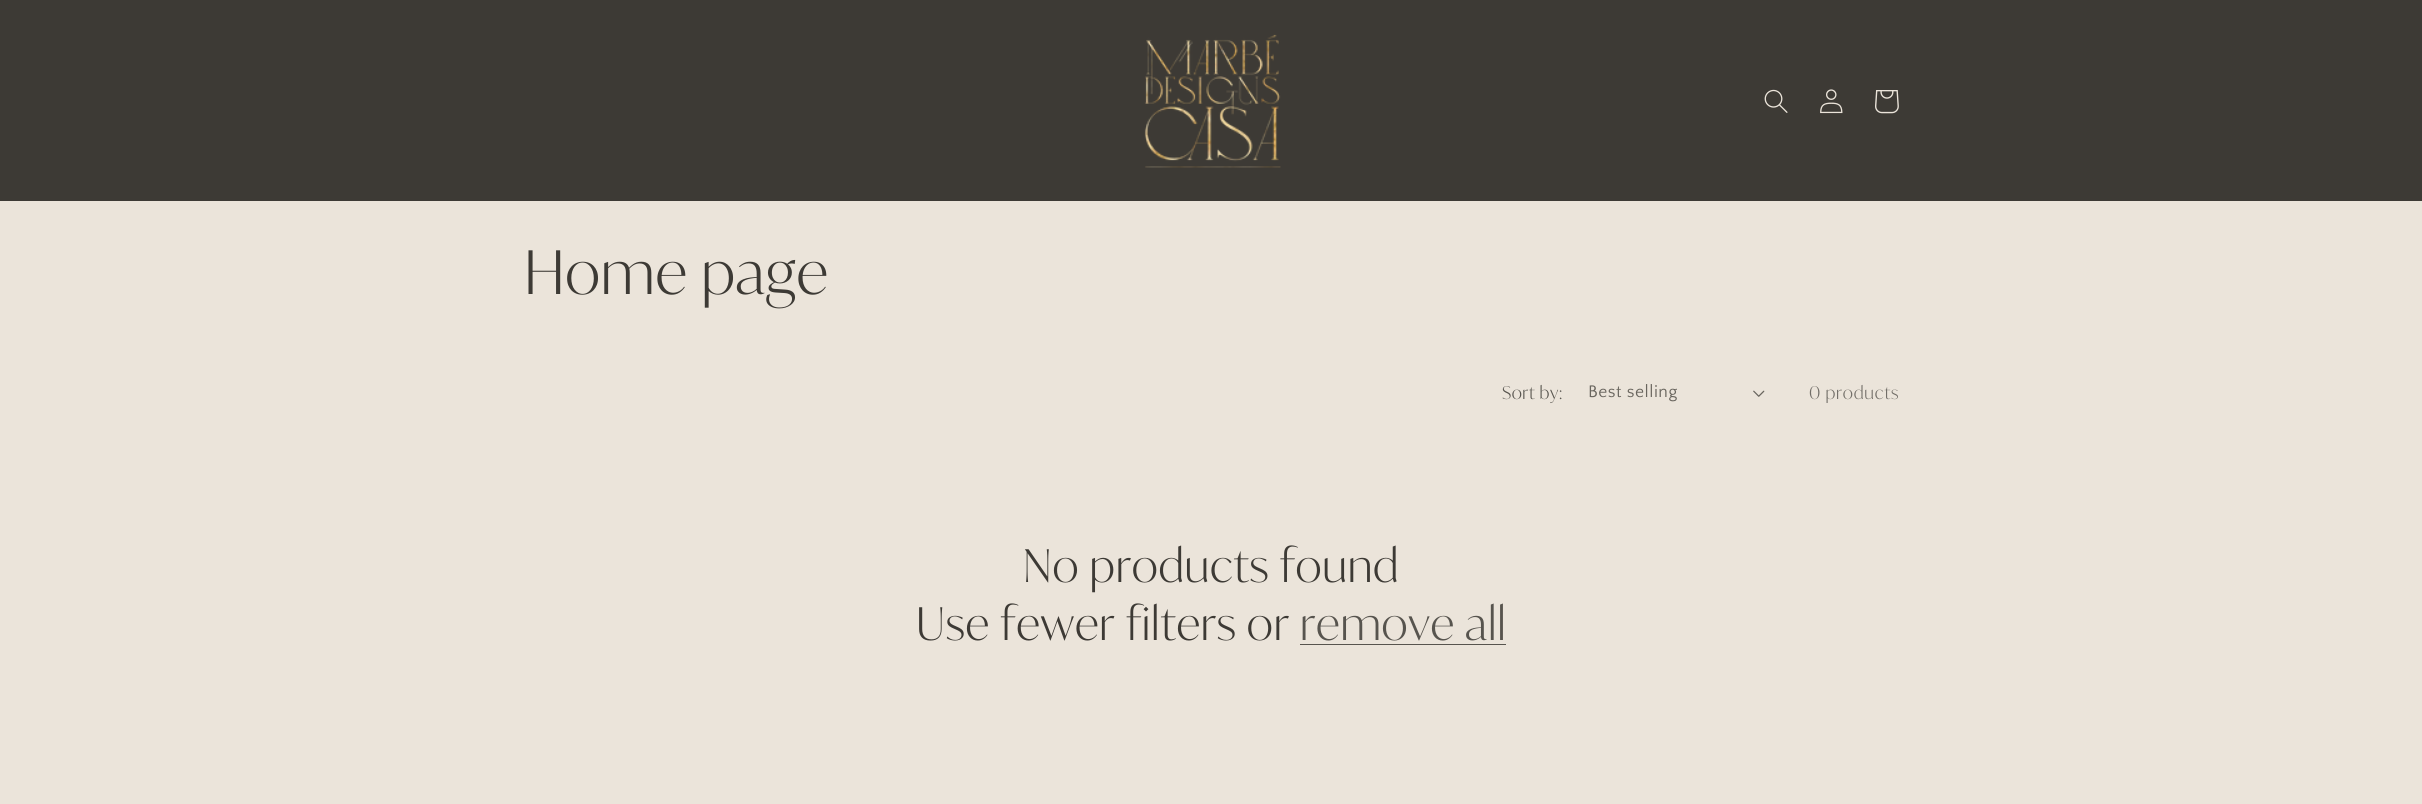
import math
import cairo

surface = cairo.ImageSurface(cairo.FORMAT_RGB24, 2422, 804)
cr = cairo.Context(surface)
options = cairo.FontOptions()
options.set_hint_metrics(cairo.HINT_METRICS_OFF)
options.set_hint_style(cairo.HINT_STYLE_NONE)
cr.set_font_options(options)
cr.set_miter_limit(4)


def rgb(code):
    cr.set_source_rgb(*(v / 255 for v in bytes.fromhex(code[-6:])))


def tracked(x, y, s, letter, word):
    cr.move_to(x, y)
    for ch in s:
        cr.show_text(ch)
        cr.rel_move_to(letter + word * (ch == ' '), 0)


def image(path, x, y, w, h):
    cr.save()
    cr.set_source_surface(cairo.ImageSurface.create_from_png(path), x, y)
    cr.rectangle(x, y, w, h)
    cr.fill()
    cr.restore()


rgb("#ebe4da")
cr.paint()
rgb("#3d3a35")
cr.rectangle(0, 0, 2422, 201)
cr.fill()
image("img/1.png", 1144, 34, 137, 134)
image("img/2.png", 1764, 89, 24, 24)
image("img/3.png", 1820, 89, 23, 25)
image("img/4.png", 1875, 90, 24, 24)
image("img/5.png", 1753, 390, 12, 7)
rgb("#57544e")
cr.rectangle(1300, 644, 206, 1)
cr.fill()
cr.select_font_face("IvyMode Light")
cr.set_font_size(60)
rgb("#3d3a35")
tracked(524, 294, "Home page", 0.75, 0)
cr.set_font_size(17.5)
rgb("#57544e")
tracked(1502, 399, "Sort by:", 0.5, 0)
cr.select_font_face("Quattrocento Sans")
rgb("#69655e")
tracked(1588, 397, "Best selling", 0.5, 0)
cr.select_font_face("IvyMode Light")
rgb("#716d67")
tracked(1809, 399, "0 products", 0.75, 0)
cr.set_font_size(45)
rgb("#3d3a35")
tracked(1023, 582, "No products found", 0.75, 0)
tracked(916, 640, "Use fewer filters or", 0.75, 0)
rgb("#57544e")
tracked(1300, 640, "remove all", 0.75, 0)
surface.write_to_png("page.png")
